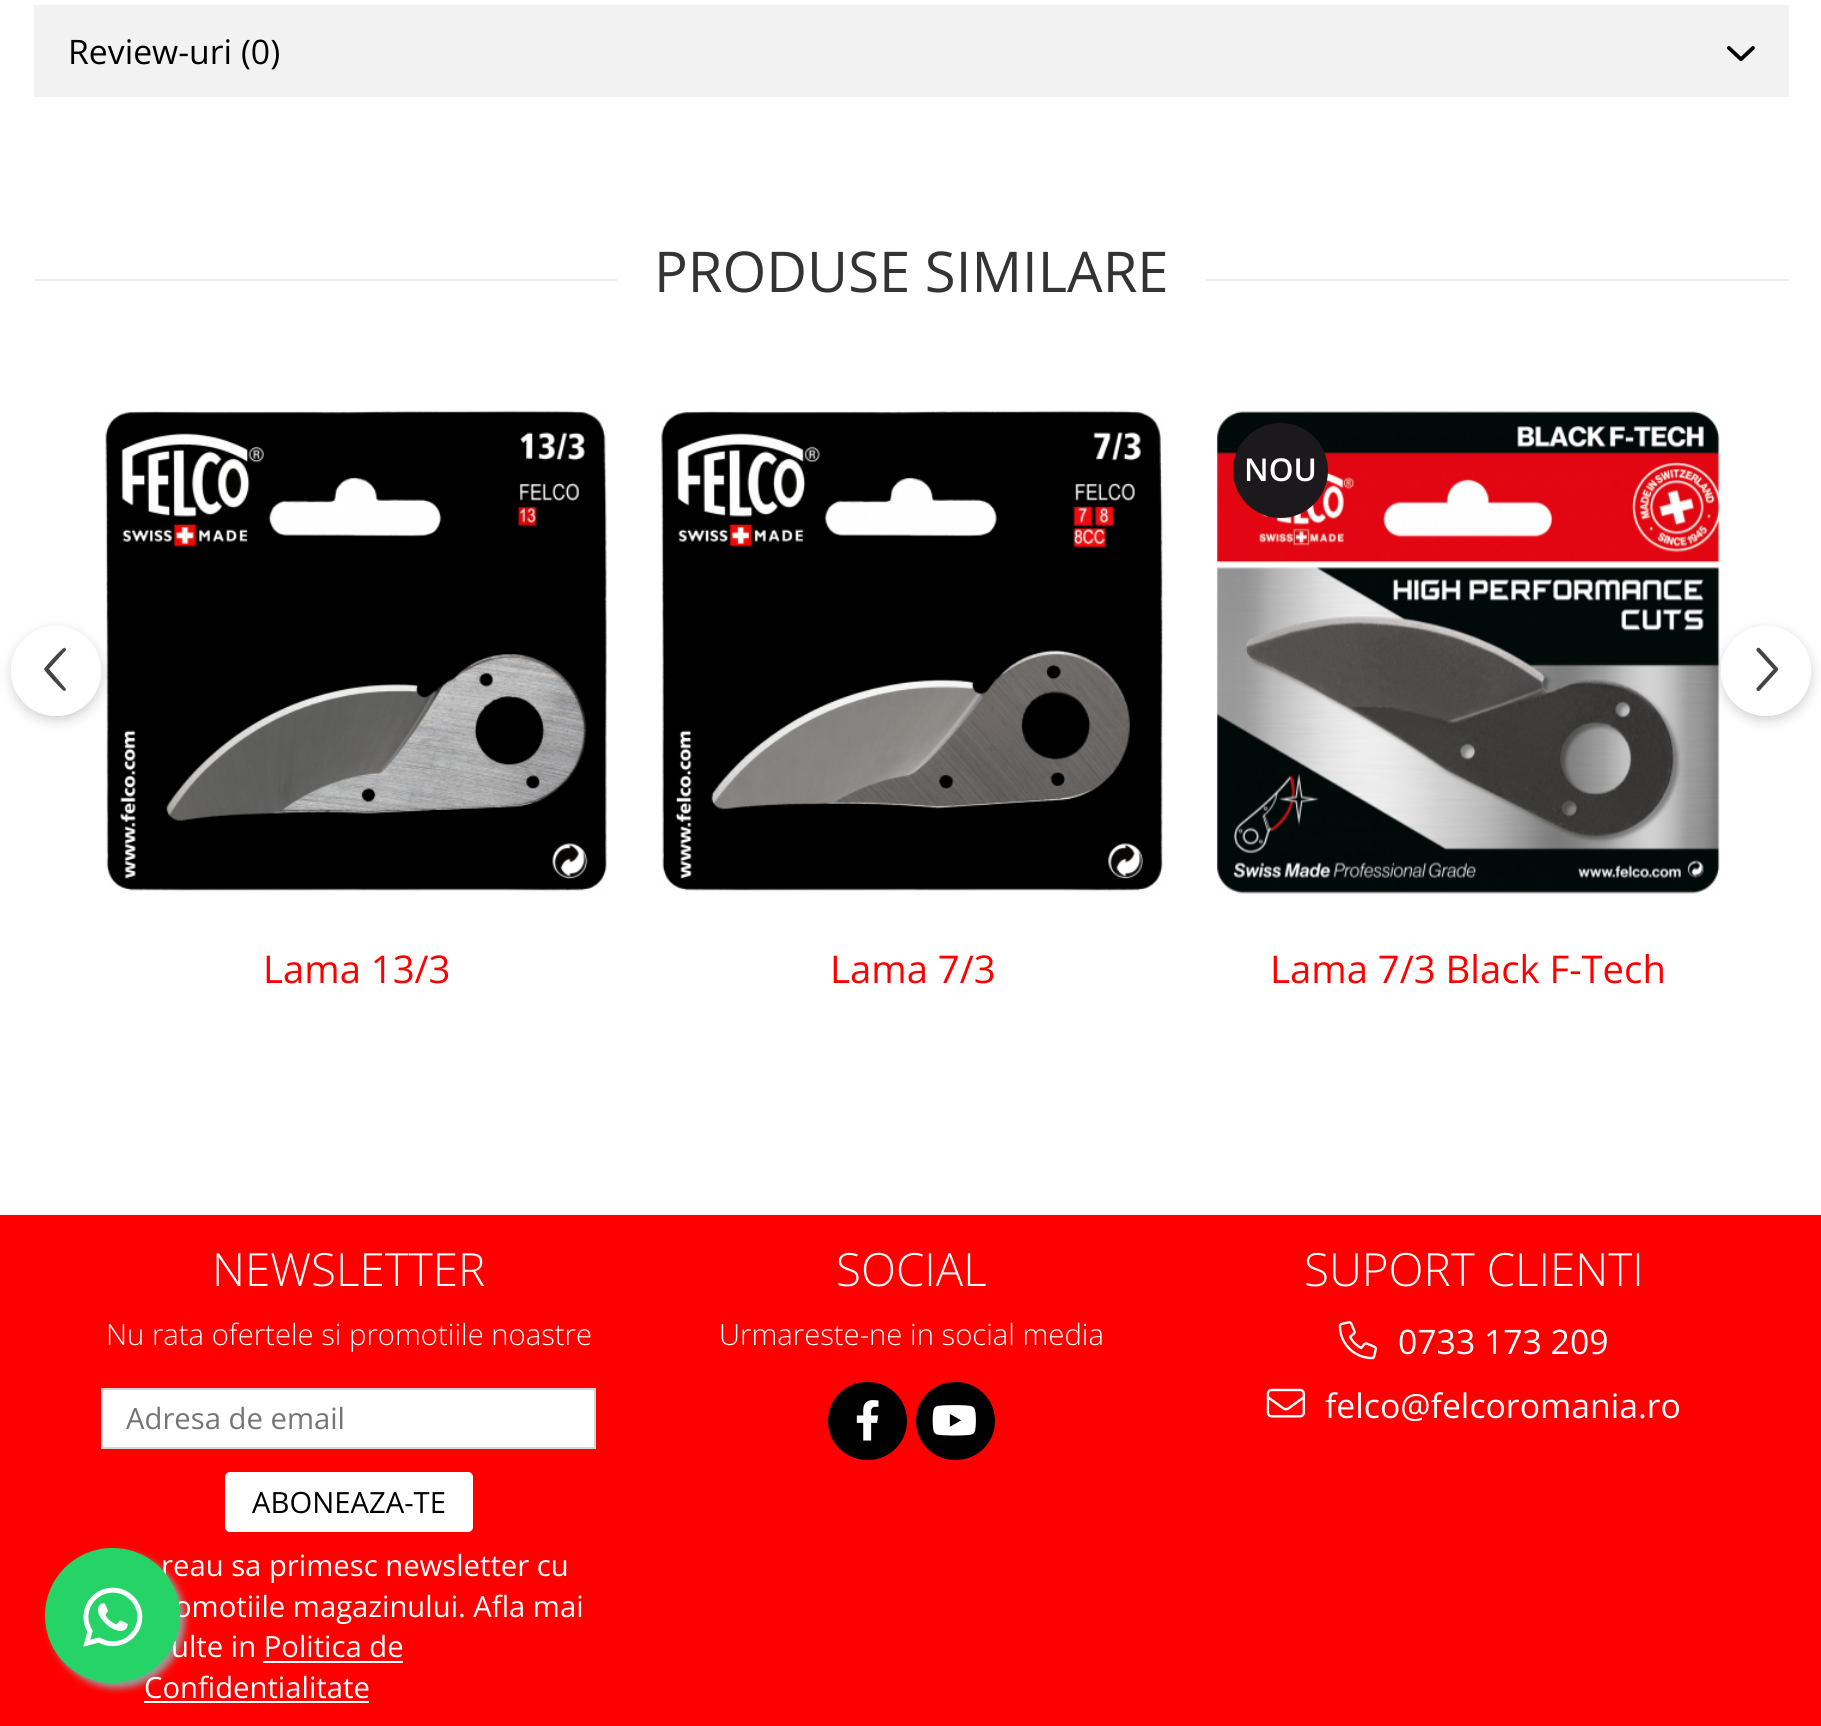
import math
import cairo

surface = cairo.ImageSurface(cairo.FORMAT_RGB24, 1821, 1726)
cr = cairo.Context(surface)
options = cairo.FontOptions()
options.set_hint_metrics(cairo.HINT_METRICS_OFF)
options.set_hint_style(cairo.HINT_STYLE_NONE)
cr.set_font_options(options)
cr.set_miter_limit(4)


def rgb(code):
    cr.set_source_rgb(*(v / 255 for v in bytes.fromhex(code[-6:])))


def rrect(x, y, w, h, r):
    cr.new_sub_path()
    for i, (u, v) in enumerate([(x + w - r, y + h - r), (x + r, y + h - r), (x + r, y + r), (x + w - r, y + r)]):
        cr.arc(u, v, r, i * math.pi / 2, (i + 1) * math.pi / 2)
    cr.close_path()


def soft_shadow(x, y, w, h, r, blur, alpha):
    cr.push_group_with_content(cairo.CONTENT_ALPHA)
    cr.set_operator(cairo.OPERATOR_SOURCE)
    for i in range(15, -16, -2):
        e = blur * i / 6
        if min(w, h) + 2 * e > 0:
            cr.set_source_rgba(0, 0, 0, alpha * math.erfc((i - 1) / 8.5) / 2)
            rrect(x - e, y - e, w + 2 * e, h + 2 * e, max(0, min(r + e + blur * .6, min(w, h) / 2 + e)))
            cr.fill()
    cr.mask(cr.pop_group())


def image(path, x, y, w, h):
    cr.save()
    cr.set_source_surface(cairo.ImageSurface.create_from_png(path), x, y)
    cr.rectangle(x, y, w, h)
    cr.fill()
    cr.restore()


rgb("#ffffff")
cr.paint()
rgb("#f2f2f2")
cr.rectangle(34, 5, 1755, 92)
cr.fill()
image("img/1.png", 1727, 46, 28, 16)
rgb("#eeeeee")
cr.rectangle(34, 279, 1755, 2)
cr.fill()
rgb("#ffffff")
cr.rectangle(617, 279, 589, 2)
cr.fill()
image("img/2.png", 105, 410, 503, 481)
image("img/3.png", 661, 410, 502, 481)
image("img/4.png", 1216, 411, 504, 483)
rgb("#1c191c")
cr.arc(1280.5, 470.5, 47.5, 0, 2 * math.pi)
cr.fill()
cr.save()
cr.set_fill_rule(cairo.FILL_RULE_EVEN_ODD)
cr.new_path()
cr.move_to(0, 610)
cr.line_to(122, 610)
cr.line_to(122, 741)
cr.line_to(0, 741)
cr.close_path()
cr.move_to(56, 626)
cr.curve_to(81, 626, 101, 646, 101, 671)
cr.curve_to(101, 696, 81, 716, 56, 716)
cr.curve_to(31, 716, 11, 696, 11, 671)
cr.curve_to(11, 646, 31, 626, 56, 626)
cr.close_path()
cr.clip()
rgb("#000000")
soft_shadow(16, 635, 81, 81, 40.5, 8, 0.3)
cr.restore()
cr.set_source_rgba(1, 1, 1, 0.8)
cr.arc(56, 671, 45, 0, 2 * math.pi)
cr.fill()
rgb("#444444")
cr.new_path()
cr.move_to(49, 669)
cr.line_to(66, 650)
cr.curve_to(66, 649, 65, 647, 64, 648)
cr.curve_to(62, 648, 44, 668, 44, 669)
cr.curve_to(44, 671, 62, 690, 64, 691)
cr.curve_to(65, 691, 66, 690, 66, 689)
cr.close_path()
cr.fill()
cr.save()
cr.set_fill_rule(cairo.FILL_RULE_EVEN_ODD)
cr.new_path()
cr.move_to(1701, 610)
cr.line_to(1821, 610)
cr.line_to(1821, 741)
cr.line_to(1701, 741)
cr.close_path()
cr.move_to(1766, 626)
cr.curve_to(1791, 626, 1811, 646, 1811, 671)
cr.curve_to(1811, 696, 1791, 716, 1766, 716)
cr.curve_to(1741, 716, 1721, 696, 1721, 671)
cr.curve_to(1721, 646, 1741, 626, 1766, 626)
cr.close_path()
cr.clip()
rgb("#000000")
soft_shadow(1726, 635, 81, 81, 40.5, 8, 0.3)
cr.restore()
cr.set_source_rgba(1, 1, 1, 0.8)
cr.arc(1766, 671, 45, 0, 2 * math.pi)
cr.fill()
image("img/5.png", 1756, 647, 23, 44)
rgb("#ff0000")
cr.rectangle(0, 1215, 1821, 511)
cr.fill()
rgb("#ffffff")
cr.rectangle(102, 1389, 493, 59)
cr.fill_preserve()
rgb("#d5d5d5")
cr.stroke()
rgb("#ffffff")
rrect(225, 1472, 248, 60, 5)
cr.fill()
cr.rectangle(263, 1661, 140, 2)
cr.fill()
cr.rectangle(144, 1701, 225, 2)
cr.fill()
rgb("#000000")
rrect(828, 1382, 79, 78, 39)
cr.fill()
image("img/6.png", 856, 1400, 23, 41)
rrect(916, 1382, 79, 78, 39)
cr.fill()
image("img/7.png", 932, 1405, 44, 31)
image("img/8.png", 1338, 1321, 39, 39)
image("img/9.png", 1266, 1388, 39, 30)
rgb("#999999")
soft_shadow(50, 1553, 135, 135, 67.5, 3.5, 1)
cr.select_font_face("Open Sans")
cr.set_font_size(33.75)
rgb("#000000")
cr.move_to(68, 64)
cr.show_text("Review-uri (0)")
cr.set_font_size(56.25)
rgb("#333333")
cr.move_to(654, 292)
cr.show_text("PRODUSE SIMILARE")
cr.set_font_size(38.25)
rgb("#ff0000")
cr.move_to(263, 983)
cr.show_text("Lama 13/3")
cr.move_to(830, 983)
cr.show_text("Lama 7/3")
cr.select_font_face("Open Sans SemiBold")
cr.set_font_size(31.5)
rgb("#ffffff")
cr.move_to(1244, 481)
cr.show_text("NOU")
cr.select_font_face("Open Sans")
cr.set_font_size(38.25)
rgb("#ff0000")
cr.move_to(1270, 983)
cr.show_text("Lama 7/3 Black F-Tech")
cr.select_font_face("Open Sans Light")
cr.set_font_size(45.75)
rgb("#ffffff")
cr.move_to(212, 1286)
cr.show_text("NEWSLETTER")
cr.set_font_size(29.25)
cr.move_to(106, 1345)
cr.show_text("Nu rata ofertele si promotiile noastre")
cr.select_font_face("Open Sans")
rgb("#757575")
cr.move_to(126, 1429)
cr.show_text("Adresa de email")
rgb("#000000")
cr.move_to(252, 1513)
cr.show_text("ABONEAZA-TE")
rgb("#ffffff")
for x, y, s in [
    (161, 1576, "reau sa primesc newsletter cu"),
    (174, 1617, "omotiile magazinului. Afla mai"),
    (171, 1657, "ulte in Politica de"),
    (144, 1698, "Confidentialitate"),
]:
    cr.move_to(x, y)
    cr.show_text(s)
cr.select_font_face("Open Sans Light")
cr.set_font_size(45.75)
cr.move_to(836, 1286)
cr.show_text("SOCIAL")
cr.set_font_size(29.25)
cr.move_to(719, 1345)
cr.show_text("Urmareste-ne in social media")
cr.set_font_size(45.75)
cr.move_to(1304, 1286)
cr.show_text("SUPORT CLIENTI")
cr.select_font_face("Open Sans")
cr.set_font_size(33.75)
cr.move_to(1398, 1354)
cr.show_text("0733 173 209")
cr.move_to(1325, 1418)
cr.show_text("felco@felcoromania.ro")
rgb("#25d366")
cr.new_path()
cr.arc(112.5, 1615.5, 67.5, 0, 2 * math.pi)
cr.fill()
image("img/10.png", 83, 1587, 60, 60)
surface.write_to_png("page.png")
